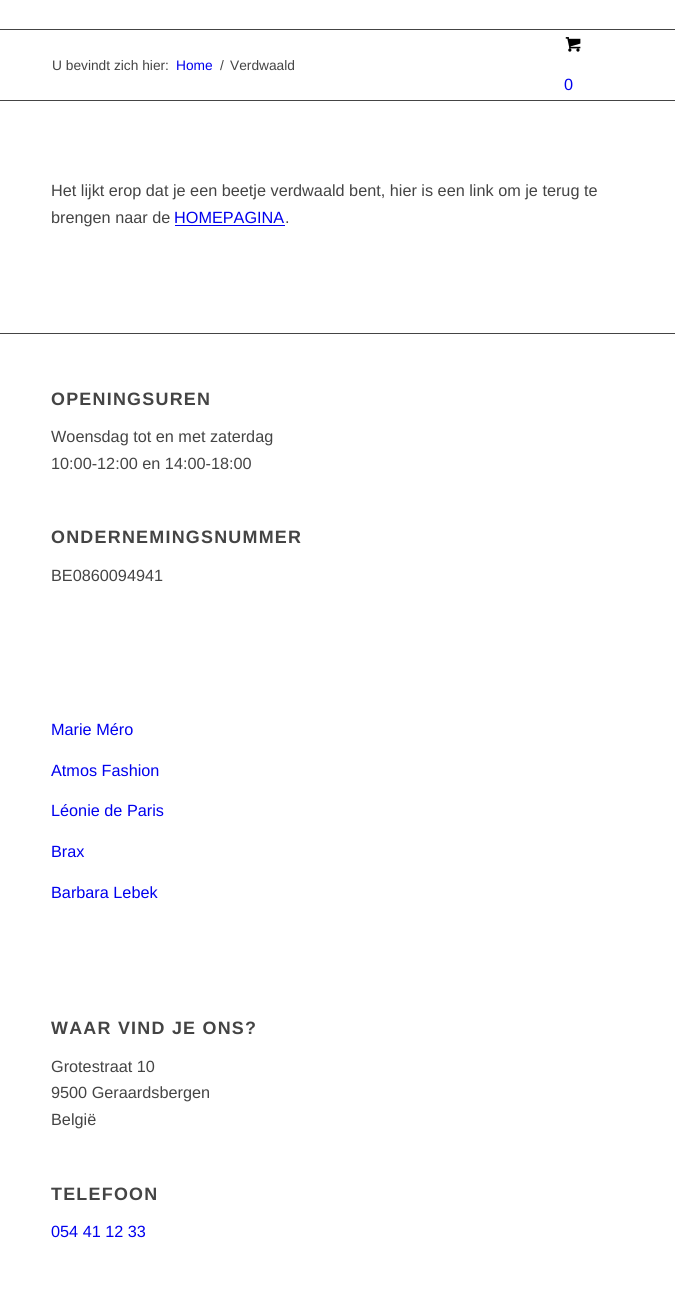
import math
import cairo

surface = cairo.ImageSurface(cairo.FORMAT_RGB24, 675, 1295)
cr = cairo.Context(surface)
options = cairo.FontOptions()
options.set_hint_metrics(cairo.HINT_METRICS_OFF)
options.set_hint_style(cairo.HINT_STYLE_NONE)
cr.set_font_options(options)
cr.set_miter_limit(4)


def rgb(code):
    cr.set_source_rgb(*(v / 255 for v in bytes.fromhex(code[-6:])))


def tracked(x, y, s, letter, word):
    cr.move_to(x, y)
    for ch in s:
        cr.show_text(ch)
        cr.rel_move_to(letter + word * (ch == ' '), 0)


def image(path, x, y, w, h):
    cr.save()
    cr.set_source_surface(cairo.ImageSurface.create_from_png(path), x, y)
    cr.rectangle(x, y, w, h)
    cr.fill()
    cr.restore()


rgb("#ffffff")
cr.paint()
for x, y, w, h, color in [
    (0, 100, 675, 1, "#444444"),
    (175, 225, 110, 1, "#0000ee"),
    (0, 333, 675, 1, "#444444"),
    (0, 29, 675, 1, "#444444"),
]:
    rgb(color)
    cr.rectangle(x, y, w, h)
    cr.fill()
image("img/1.png", 565, 37, 16, 15)
cr.select_font_face("Liberation Sans")
cr.set_font_size(13.75)
cr.move_to(52, 70)
cr.show_text("U bevindt zich hier:")
rgb("#0000ee")
cr.move_to(176, 70)
cr.show_text("Home")
rgb("#444444")
cr.move_to(220, 70)
cr.show_text("/")
cr.move_to(230, 70)
cr.show_text("Verdwaald")
cr.set_font_size(16.25)
cr.move_to(51, 196)
cr.show_text("Het lijkt erop dat je een beetje verdwaald bent, hier is een link om je terug te")
cr.move_to(51, 223)
cr.show_text("brengen naar de")
rgb("#0000ee")
cr.move_to(174, 223)
cr.show_text("HOMEPAGINA")
rgb("#444444")
cr.move_to(285, 223)
cr.show_text(".")
cr.select_font_face("Liberation Sans", cairo.FONT_SLANT_NORMAL, cairo.FONT_WEIGHT_BOLD)
cr.set_font_size(17.9)
tracked(51, 405, "OPENINGSUREN", 1.25, 0)
cr.select_font_face("Liberation Sans")
cr.set_font_size(16.25)
cr.move_to(51, 442)
cr.show_text("Woensdag tot en met zaterdag")
cr.move_to(51, 469)
cr.show_text("10:00-12:00 en 14:00-18:00")
cr.select_font_face("Liberation Sans", cairo.FONT_SLANT_NORMAL, cairo.FONT_WEIGHT_BOLD)
cr.set_font_size(17.9)
tracked(51, 543, "ONDERNEMINGSNUMMER", 1.25, 0)
cr.select_font_face("Liberation Sans")
cr.set_font_size(16.25)
cr.move_to(51, 581)
cr.show_text("BE0860094941")
rgb("#0000ee")
for x, y, s in [
    (51, 735, "Marie Méro"),
    (51, 776, "Atmos Fashion"),
    (51, 816, "Léonie de Paris"),
    (51, 857, "Brax"),
    (51, 898, "Barbara Lebek"),
]:
    cr.move_to(x, y)
    cr.show_text(s)
cr.select_font_face("Liberation Sans", cairo.FONT_SLANT_NORMAL, cairo.FONT_WEIGHT_BOLD)
cr.set_font_size(17.9)
rgb("#444444")
tracked(51, 1034, "WAAR VIND JE ONS?", 1.25, 0)
cr.select_font_face("Liberation Sans")
cr.set_font_size(16.25)
for x, y, s in [
    (51, 1072, "Grotestraat 10"),
    (51, 1098, "9500 Geraardsbergen"),
    (51, 1125, "België"),
]:
    cr.move_to(x, y)
    cr.show_text(s)
cr.select_font_face("Liberation Sans", cairo.FONT_SLANT_NORMAL, cairo.FONT_WEIGHT_BOLD)
cr.set_font_size(17.9)
tracked(51, 1200, "TELEFOON", 1.25, 0)
cr.select_font_face("Liberation Sans")
cr.set_font_size(16.25)
rgb("#0000ee")
cr.move_to(51, 1237)
cr.show_text("054 41 12 33")
cr.move_to(564, 90)
cr.show_text("0")
surface.write_to_png("page.png")
